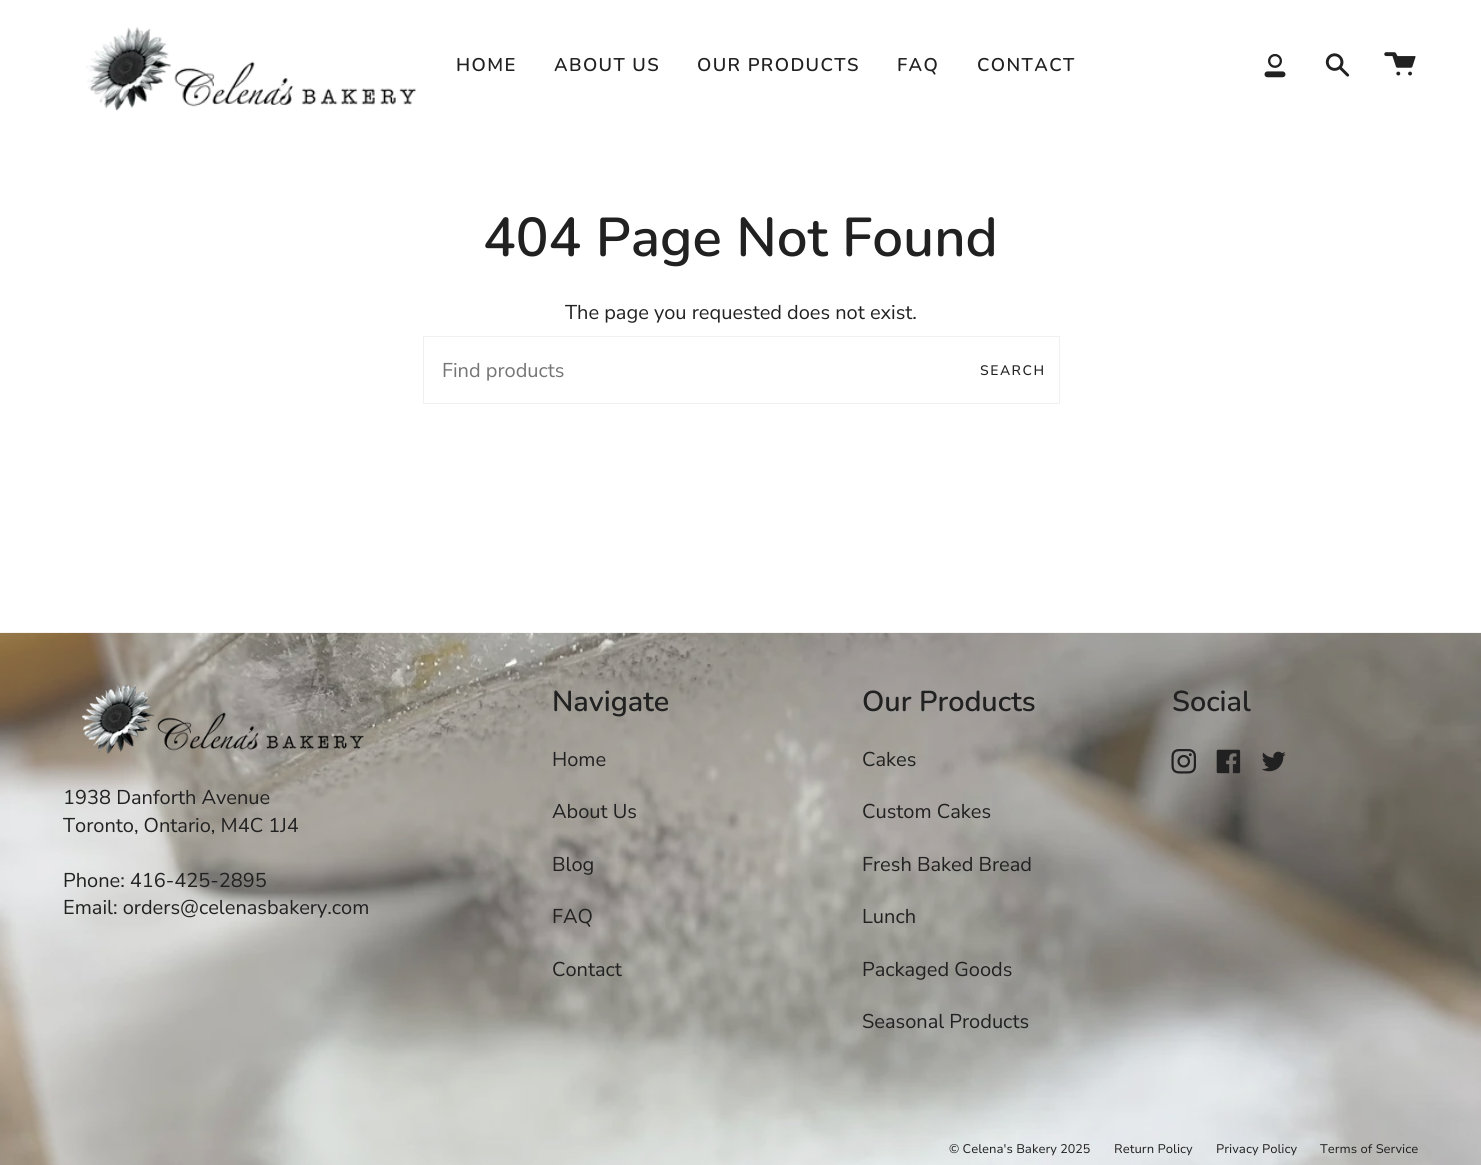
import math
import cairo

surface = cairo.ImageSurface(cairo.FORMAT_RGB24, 1481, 1165)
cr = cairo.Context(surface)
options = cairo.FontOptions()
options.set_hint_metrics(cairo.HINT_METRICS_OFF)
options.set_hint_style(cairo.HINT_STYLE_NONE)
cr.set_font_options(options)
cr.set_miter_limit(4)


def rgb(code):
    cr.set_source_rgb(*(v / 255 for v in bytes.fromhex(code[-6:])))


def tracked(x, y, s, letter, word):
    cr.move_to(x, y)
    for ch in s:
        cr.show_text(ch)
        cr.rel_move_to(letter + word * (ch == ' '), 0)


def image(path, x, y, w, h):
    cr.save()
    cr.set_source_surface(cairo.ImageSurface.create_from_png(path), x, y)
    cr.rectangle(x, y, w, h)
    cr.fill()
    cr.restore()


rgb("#ffffff")
cr.paint()
image("img/1.png", 86, 26, 331, 85)
image("img/2.png", 1264, 53, 22, 25)
image("img/3.png", 1325, 53, 25, 24)
image("img/4.png", 1384, 52, 32, 24)
cr.rectangle(423.5, 336.5, 636, 67)
rgb("#f0f0f0")
cr.set_line_width(1)
cr.stroke()
image("img/5.png", 0, 632, 1481, 533)
image("img/6.png", 1171, 749, 25, 25)
image("img/7.png", 1216, 749, 25, 25)
image("img/8.png", 1262, 751, 24, 21)
image("img/9.png", 81, 683, 283, 71)
cr.select_font_face("Nunito SemiBold")
cr.set_font_size(18.4)
rgb("#212121")
for x, y, s in [
    (456, 71, "HOME"),
    (554, 71, "ABOUT US"),
    (697, 71, "OUR PRODUCTS"),
    (897, 71, "FAQ"),
    (977, 71, "CONTACT"),
]:
    tracked(x, y, s, 1.4, 0)
cr.set_font_size(54.6)
cr.move_to(483, 256)
cr.show_text("404 Page Not Found")
cr.select_font_face("Nunito Sans")
cr.set_font_size(20)
cr.move_to(565, 319)
cr.show_text("The page you requested does not exist.")
rgb("#757575")
cr.move_to(442, 377)
cr.show_text("Find products")
cr.select_font_face("Nunito Sans Medium")
cr.set_font_size(13.75)
rgb("#212121")
tracked(980, 375, "SEARCH", 1.5, 0)
cr.select_font_face("Nunito SemiBold")
cr.set_font_size(28.75)
cr.move_to(552, 711)
cr.show_text("Navigate")
cr.select_font_face("Nunito Sans")
cr.set_font_size(20)
for x, y, s in [
    (552, 766, "Home"),
    (552, 818, "About Us"),
    (552, 871, "Blog"),
    (552, 923, "FAQ"),
    (552, 976, "Contact"),
]:
    cr.move_to(x, y)
    cr.show_text(s)
cr.select_font_face("Nunito SemiBold")
cr.set_font_size(28.75)
cr.move_to(862, 711)
cr.show_text("Our Products")
cr.select_font_face("Nunito Sans")
cr.set_font_size(20)
for x, y, s in [
    (862, 766, "Cakes"),
    (862, 818, "Custom Cakes"),
    (862, 871, "Fresh Baked Bread"),
    (862, 923, "Lunch"),
    (862, 976, "Packaged Goods"),
    (862, 1028, "Seasonal Products"),
]:
    cr.move_to(x, y)
    cr.show_text(s)
cr.select_font_face("Nunito SemiBold")
cr.set_font_size(28.75)
cr.move_to(1172, 711)
cr.show_text("Social")
cr.select_font_face("Nunito Sans")
cr.set_font_size(20)
for x, y, s in [
    (63, 804, "1938 Danforth Avenue"),
    (63, 832, "Toronto, Ontario, M4C 1J4"),
    (63, 887, "Phone: 416-425-2895"),
    (63, 914, "Email: orders@celenasbakery.com"),
]:
    cr.move_to(x, y)
    cr.show_text(s)
cr.select_font_face("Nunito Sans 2")
cr.set_font_size(12.5)
for x, y, s in [
    (949, 1153, "© Celena's Bakery 2025"),
    (1114, 1153, "Return Policy"),
    (1216, 1153, "Privacy Policy"),
    (1320, 1153, "Terms of Service"),
]:
    cr.move_to(x, y)
    cr.show_text(s)
surface.write_to_png("page.png")
